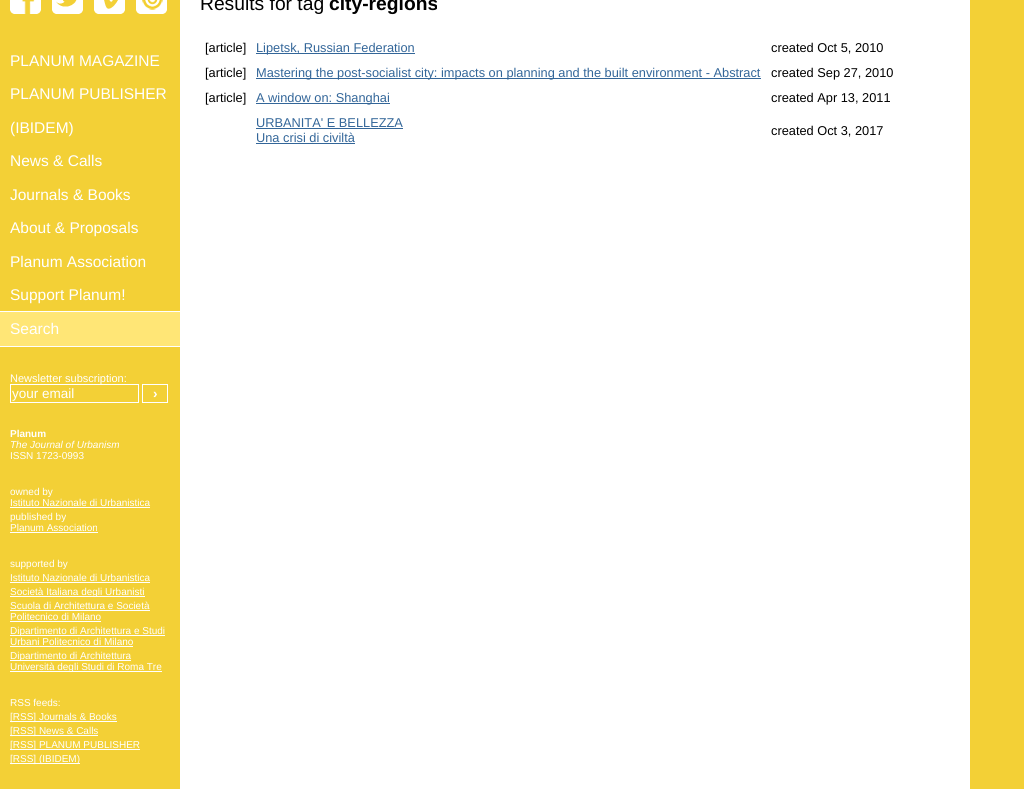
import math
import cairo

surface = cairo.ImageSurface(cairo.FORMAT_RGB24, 1024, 789)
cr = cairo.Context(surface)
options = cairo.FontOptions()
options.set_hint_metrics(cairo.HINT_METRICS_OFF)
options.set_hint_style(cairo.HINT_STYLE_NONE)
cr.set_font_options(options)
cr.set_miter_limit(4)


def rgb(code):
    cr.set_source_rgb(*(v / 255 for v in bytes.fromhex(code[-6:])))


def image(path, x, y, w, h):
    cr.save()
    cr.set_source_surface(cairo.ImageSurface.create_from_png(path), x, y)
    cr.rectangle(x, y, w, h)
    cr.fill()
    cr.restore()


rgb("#f3d036")
cr.paint()
rgb("#ffffff")
cr.rectangle(180, 0, 790, 789)
cr.fill()
image("img/1.png", 10, 0, 31, 14)
image("img/2.png", 52, 0, 31, 14)
image("img/3.png", 94, 0, 31, 14)
image("img/4.png", 136, 0, 31, 14)
for x, y, w, h, color in [
    (0, 312, 180, 34, "#ffe676"),
    (0, 311, 180, 1, "#ffffff"),
    (0, 346, 180, 1, "#ffffff"),
]:
    rgb(color)
    cr.rectangle(x, y, w, h)
    cr.fill()
cr.rectangle(10.5, 384.5, 128, 18)
cr.set_line_width(1)
cr.stroke()
cr.rectangle(142.5, 384.5, 25, 18)
cr.stroke()
for x, y, w, h, color in [
    (10, 507, 140, 1, "#ffffff"),
    (10, 532, 88, 1, "#ffffff"),
    (10, 582, 140, 1, "#ffffff"),
    (10, 596, 135, 1, "#ffffff"),
    (10, 610, 140, 1, "#ffffff"),
    (10, 621, 91, 1, "#ffffff"),
    (10, 635, 155, 1, "#ffffff"),
    (10, 646, 123, 1, "#ffffff"),
    (10, 660, 121, 1, "#ffffff"),
    (10, 671, 152, 1, "#ffffff"),
    (10, 721, 107, 1, "#ffffff"),
    (10, 735, 88, 1, "#ffffff"),
    (10, 749, 130, 1, "#ffffff"),
    (10, 763, 70, 1, "#ffffff"),
    (256, 53, 159, 1, "#336699"),
    (256, 78, 505, 1, "#336699"),
    (256, 103, 134, 1, "#336699"),
    (256, 128, 147, 1, "#336699"),
    (256, 143, 99, 1, "#336699"),
]:
    rgb(color)
    cr.rectangle(x, y, w, h)
    cr.fill()
cr.select_font_face("Liberation Sans")
cr.set_font_size(15.5)
rgb("#ffffff")
for x, y, s in [
    (10, 66, "PLANUM MAGAZINE"),
    (10, 99, "PLANUM PUBLISHER"),
    (10, 133, "(IBIDEM)"),
    (10, 166, "News & Calls"),
    (10, 200, "Journals & Books"),
    (10, 233, "About & Proposals"),
    (10, 267, "Planum Association"),
    (10, 300, "Support Planum!"),
    (10, 334, "Search"),
]:
    cr.move_to(x, y)
    cr.show_text(s)
cr.set_font_size(11)
cr.move_to(10, 382)
cr.show_text("Newsletter subscription:")
cr.set_font_size(13.5)
cr.move_to(12, 398)
cr.show_text("your email")
cr.select_font_face("Liberation Sans", cairo.FONT_SLANT_NORMAL, cairo.FONT_WEIGHT_BOLD)
cr.move_to(153, 398)
cr.show_text("›")
cr.set_font_size(10)
cr.move_to(10, 437)
cr.show_text("Planum")
cr.select_font_face("Liberation Sans", cairo.FONT_SLANT_ITALIC)
cr.move_to(10, 448)
cr.show_text("The Journal of Urbanism")
cr.select_font_face("Liberation Sans")
for x, y, s in [
    (10, 459, "ISSN 1723-0993"),
    (10, 495, "owned by"),
    (10, 506, "Istituto Nazionale di Urbanistica"),
    (10, 520, "published by"),
    (10, 531, "Planum Association"),
    (10, 567, "supported by"),
    (10, 581, "Istituto Nazionale di Urbanistica"),
    (10, 595, "Società Italiana degli Urbanisti"),
    (10, 609, "Scuola di Architettura e Società"),
    (10, 620, "Politecnico di Milano"),
    (10, 634, "Dipartimento di Architettura e Studi"),
    (10, 645, "Urbani Politecnico di Milano"),
    (10, 659, "Dipartimento di Architettura"),
    (10, 670, "Università degli Studi di Roma Tre"),
    (10, 706, "RSS feeds:"),
    (10, 720, "[RSS] Journals & Books"),
    (10, 734, "[RSS] News & Calls"),
    (10, 748, "[RSS] PLANUM PUBLISHER"),
    (10, 762, "[RSS] (IBIDEM)"),
]:
    cr.move_to(x, y)
    cr.show_text(s)
cr.set_font_size(19.25)
rgb("#000000")
cr.move_to(200, 10)
cr.show_text("Results for tag")
cr.select_font_face("Liberation Sans", cairo.FONT_SLANT_NORMAL, cairo.FONT_WEIGHT_BOLD)
cr.move_to(329, 10)
cr.show_text("city-regions")
cr.select_font_face("Liberation Sans")
cr.set_font_size(12.8)
cr.move_to(205, 52)
cr.show_text("[article]")
rgb("#336699")
cr.move_to(256, 52)
cr.show_text("Lipetsk, Russian Federation")
rgb("#000000")
cr.move_to(771, 52)
cr.show_text("created Oct 5, 2010")
cr.move_to(205, 77)
cr.show_text("[article]")
rgb("#336699")
cr.move_to(256, 77)
cr.show_text("Mastering the post-socialist city: impacts on planning and the built environment - Abstract")
rgb("#000000")
cr.move_to(771, 77)
cr.show_text("created Sep 27, 2010")
cr.move_to(205, 102)
cr.show_text("[article]")
rgb("#336699")
cr.move_to(256, 102)
cr.show_text("A window on: Shanghai")
rgb("#000000")
cr.move_to(771, 102)
cr.show_text("created Apr 13, 2011")
rgb("#336699")
cr.move_to(256, 127)
cr.show_text("URBANITA' E BELLEZZA")
cr.move_to(256, 142)
cr.show_text("Una crisi di civiltà")
rgb("#000000")
cr.move_to(771, 135)
cr.show_text("created Oct 3, 2017")
surface.write_to_png("page.png")
